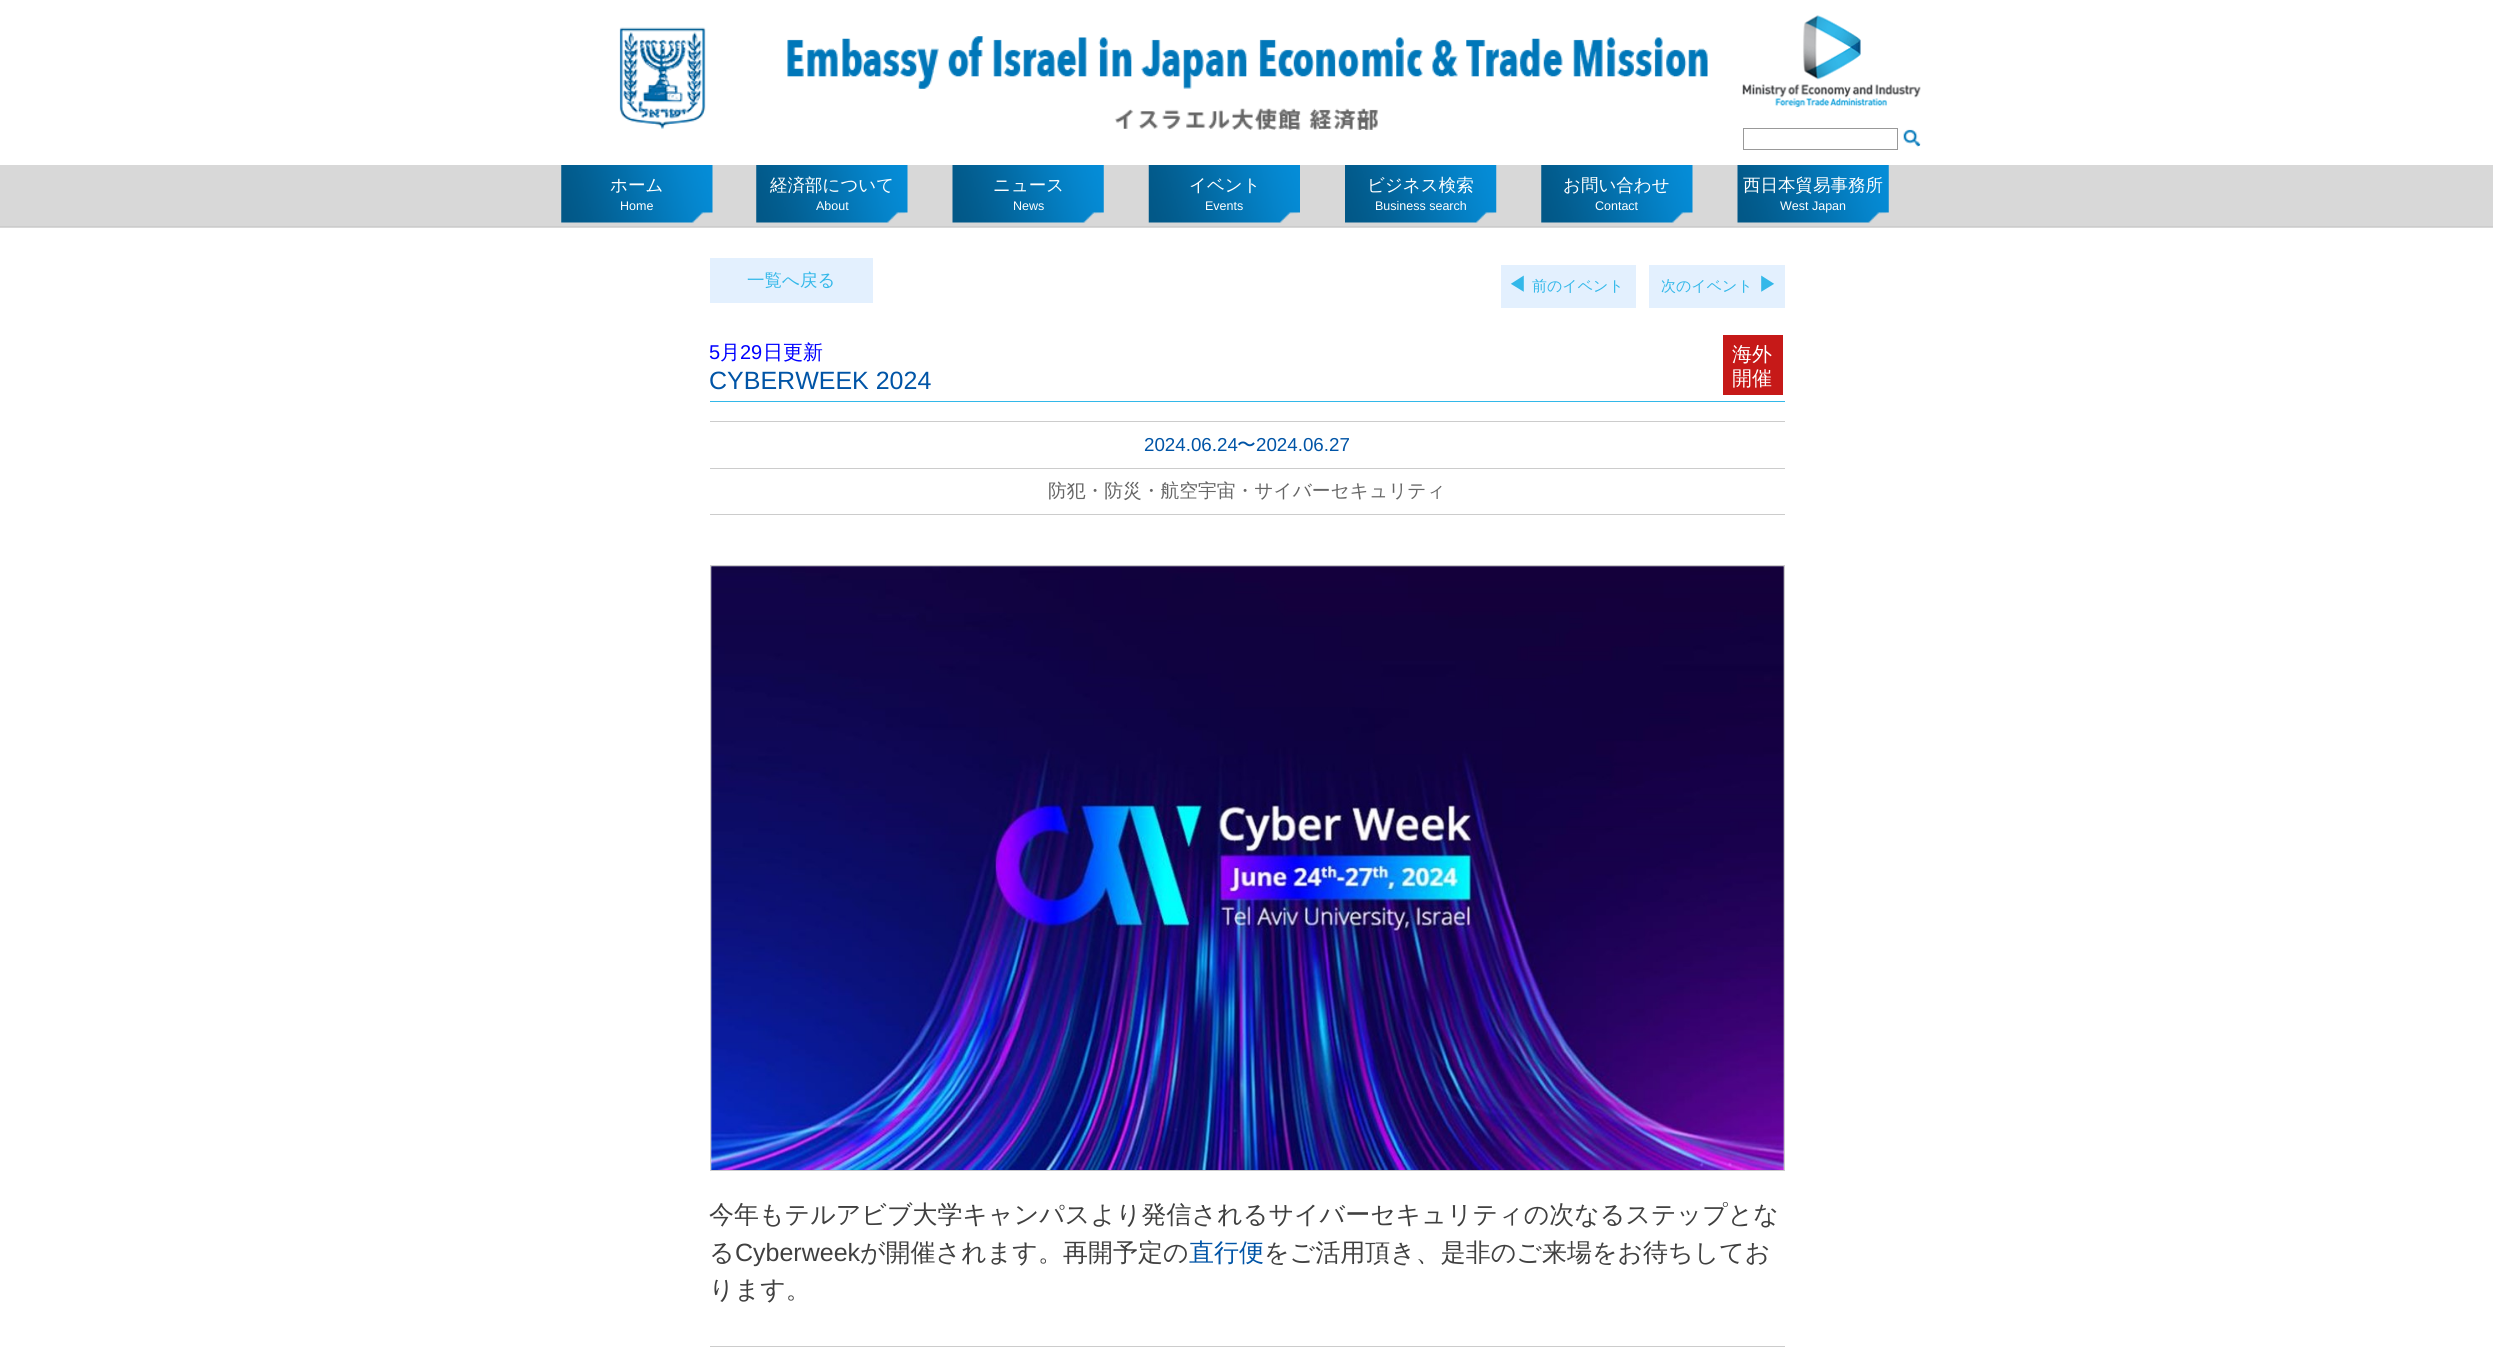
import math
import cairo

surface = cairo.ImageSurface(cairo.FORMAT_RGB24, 2493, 1351)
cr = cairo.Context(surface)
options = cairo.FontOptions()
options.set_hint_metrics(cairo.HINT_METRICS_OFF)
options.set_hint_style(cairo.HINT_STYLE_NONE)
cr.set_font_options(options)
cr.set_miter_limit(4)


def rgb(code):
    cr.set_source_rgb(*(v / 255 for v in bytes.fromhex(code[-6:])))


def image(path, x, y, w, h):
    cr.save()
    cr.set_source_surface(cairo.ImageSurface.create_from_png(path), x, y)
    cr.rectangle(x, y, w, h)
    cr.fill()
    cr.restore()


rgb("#ffffff")
cr.paint()
image("img/1.png", 787, 36, 921, 94)
image("img/2.png", 619, 27, 87, 102)
image("img/3.png", 1742, 15, 179, 93)
cr.rectangle(1743.5, 128.5, 154, 21)
rgb("#999999")
cr.set_line_width(1)
cr.stroke()
image("img/4.png", 1903, 129, 18, 18)
rgb("#d8d8d8")
cr.rectangle(0, 165, 2493, 63)
cr.fill()
image("img/5.png", 561, 165, 152, 58)
image("img/6.png", 756, 165, 152, 58)
image("img/7.png", 952, 165, 152, 58)
image("img/8.png", 1148, 165, 152, 58)
image("img/9.png", 1345, 165, 152, 58)
image("img/5.png", 1541, 165, 152, 58)
image("img/7.png", 1737, 165, 152, 58)
for x, y, w, h, color in [
    (0, 226, 2493, 1, "#cccccc"),
    (710, 258, 163, 45, "#e3f0fe"),
    (1501, 265, 135, 43, "#e3f0fe"),
    (1649, 265, 136, 43, "#e3f0fe"),
    (710, 401, 1075, 1, "#33b8e9"),
    (1723, 335, 60, 60, "#c61918"),
    (710, 421, 1075, 1, "#cccccc"),
    (710, 468, 1075, 1, "#cccccc"),
    (710, 514, 1075, 1, "#cccccc"),
]:
    rgb(color)
    cr.rectangle(x, y, w, h)
    cr.fill()
cr.rectangle(710.5, 565.5, 1074, 605)
cr.stroke()
image("img/10.png", 711, 566, 1073, 604)
cr.rectangle(710, 1346, 1075, 1)
cr.fill()
cr.select_font_face("WenQuanYi Zen Hei Medium")
cr.set_font_size(17.5)
rgb("#ffffff")
cr.move_to(610, 191)
cr.show_text("ホーム")
cr.select_font_face("Liberation Sans")
cr.set_font_size(12.5)
cr.move_to(620, 210)
cr.show_text("Home")
cr.select_font_face("WenQuanYi Zen Hei Medium")
cr.set_font_size(17.5)
cr.move_to(770, 191)
cr.show_text("経済部について")
cr.select_font_face("Liberation Sans")
cr.set_font_size(12.5)
cr.move_to(816, 210)
cr.show_text("About")
cr.select_font_face("WenQuanYi Zen Hei Medium")
cr.set_font_size(17.5)
cr.move_to(993, 191)
cr.show_text("ニュース")
cr.select_font_face("Liberation Sans")
cr.set_font_size(12.5)
cr.move_to(1013, 210)
cr.show_text("News")
cr.select_font_face("WenQuanYi Zen Hei Medium")
cr.set_font_size(17.5)
cr.move_to(1189, 191)
cr.show_text("イベント")
cr.select_font_face("Liberation Sans")
cr.set_font_size(12.5)
cr.move_to(1205, 210)
cr.show_text("Events")
cr.select_font_face("WenQuanYi Zen Hei Medium")
cr.set_font_size(17.5)
cr.move_to(1367, 191)
cr.show_text("ビジネス検索")
cr.select_font_face("Liberation Sans")
cr.set_font_size(12.5)
cr.move_to(1375, 210)
cr.show_text("Business search")
cr.select_font_face("WenQuanYi Zen Hei Medium")
cr.set_font_size(17.5)
cr.move_to(1563, 191)
cr.show_text("お問い合わせ")
cr.select_font_face("Liberation Sans")
cr.set_font_size(12.5)
cr.move_to(1595, 210)
cr.show_text("Contact")
cr.select_font_face("WenQuanYi Zen Hei Medium")
cr.set_font_size(17.5)
cr.move_to(1743, 191)
cr.show_text("西日本貿易事務所")
cr.select_font_face("Liberation Sans")
cr.set_font_size(12.5)
cr.move_to(1780, 210)
cr.show_text("West Japan")
cr.select_font_face("WenQuanYi Zen Hei Medium")
cr.set_font_size(17.5)
rgb("#33b8e9")
cr.move_to(747, 286)
cr.show_text("一覧へ戻る")
cr.set_font_size(20)
cr.move_to(1507, 291)
cr.show_text("◀")
cr.set_font_size(15)
cr.move_to(1532, 291)
cr.show_text("前のイベント")
cr.move_to(1661, 291)
cr.show_text("次のイベント")
cr.set_font_size(20)
cr.move_to(1758, 291)
cr.show_text("▶")
cr.select_font_face("Liberation Sans")
rgb("#0000ff")
cr.move_to(709, 359)
cr.show_text("5")
cr.select_font_face("WenQuanYi Zen Hei Medium")
cr.move_to(720, 359)
cr.show_text("月")
cr.select_font_face("Liberation Sans")
cr.move_to(740, 359)
cr.show_text("29")
cr.select_font_face("WenQuanYi Zen Hei Medium")
cr.move_to(763, 359)
cr.show_text("日更新")
cr.select_font_face("Liberation Sans")
cr.set_font_size(25)
rgb("#0054a6")
cr.move_to(709, 389)
cr.show_text("CYBERWEEK 2024")
cr.select_font_face("WenQuanYi Zen Hei Medium")
cr.set_font_size(20)
rgb("#ffffff")
cr.move_to(1732, 361)
cr.show_text("海外")
cr.move_to(1732, 385)
cr.show_text("開催")
cr.select_font_face("Liberation Sans")
cr.set_font_size(18.75)
rgb("#0054a6")
cr.move_to(1144, 451)
cr.show_text("2024.06.24")
cr.select_font_face("WenQuanYi Zen Hei Medium")
cr.move_to(1237, 451)
cr.show_text("〜")
cr.select_font_face("Liberation Sans")
cr.move_to(1256, 451)
cr.show_text("2024.06.27")
cr.select_font_face("WenQuanYi Zen Hei Medium")
rgb("#666666")
cr.move_to(1048, 497)
cr.show_text("防犯・防災・航空宇宙・サイバーセキュリティ")
cr.set_font_size(25)
rgb("#404040")
cr.move_to(709, 1223)
cr.show_text("今年もテルアビブ大学キャンパスより発信されるサイバーセキュリティの次なるステップとな")
cr.move_to(709, 1261)
cr.show_text("る")
cr.select_font_face("Liberation Sans")
cr.move_to(735, 1261)
cr.show_text("Cyberweek")
cr.select_font_face("WenQuanYi Zen Hei Medium")
cr.move_to(860, 1261)
cr.show_text("が開催されます。再開予定の")
rgb("#0054a6")
cr.move_to(1189, 1261)
cr.show_text("直行便")
rgb("#404040")
cr.move_to(1264, 1261)
cr.show_text("をご活用頂き、是非のご来場をお待ちしてお")
cr.move_to(709, 1298)
cr.show_text("ります。")
surface.write_to_png("page.png")
